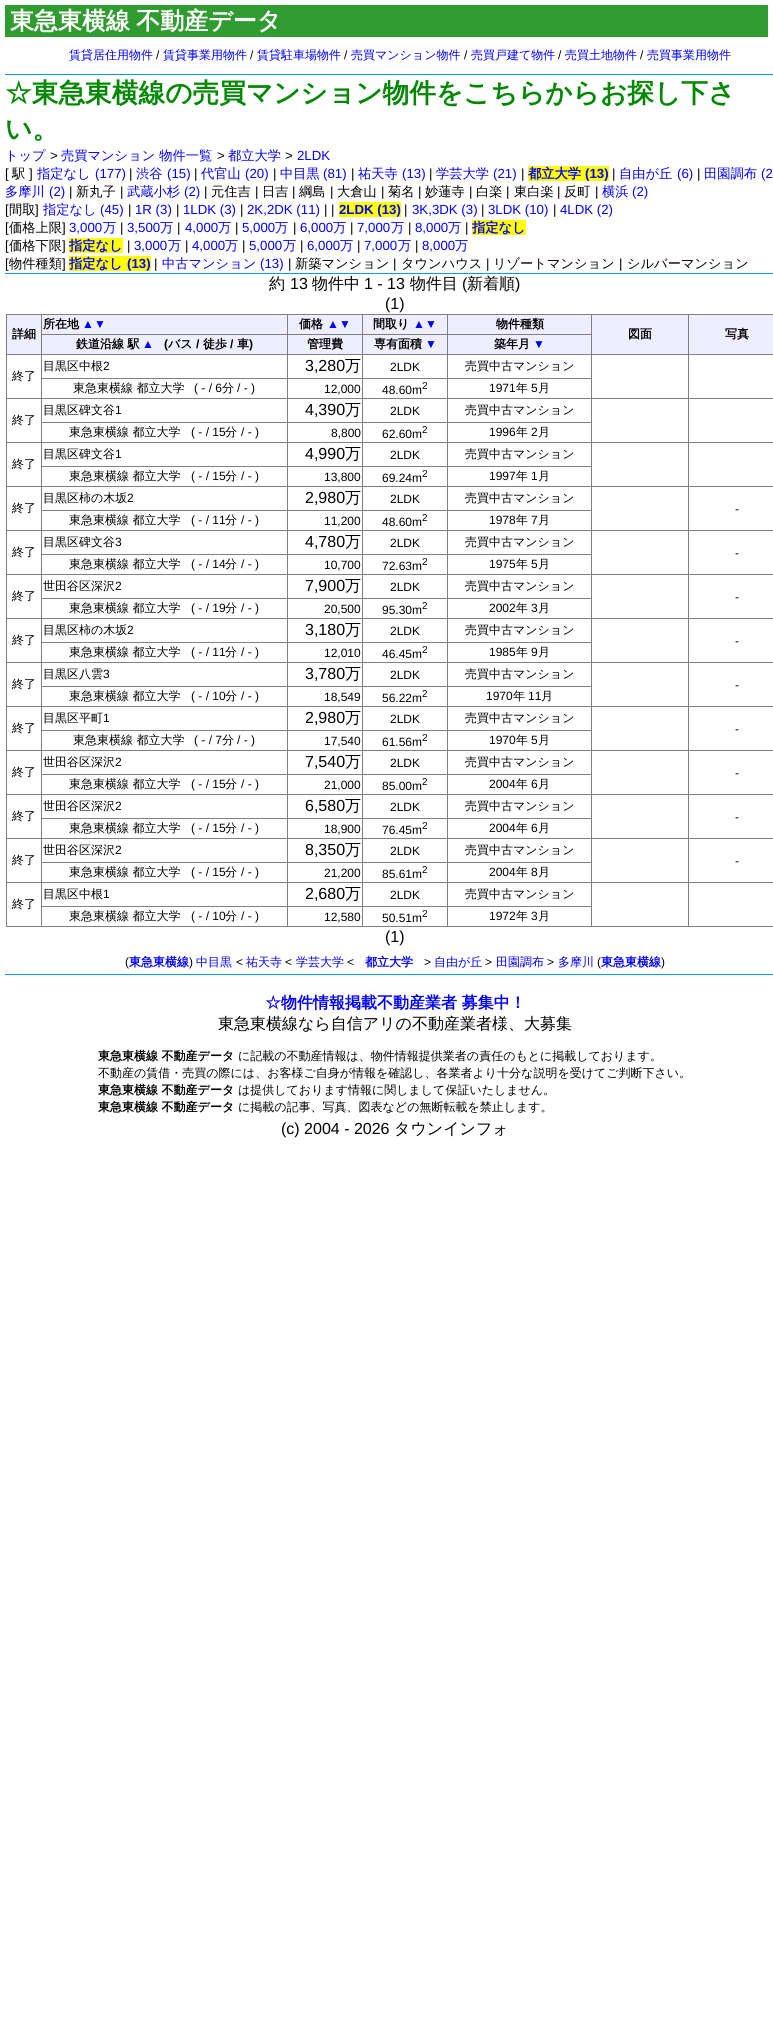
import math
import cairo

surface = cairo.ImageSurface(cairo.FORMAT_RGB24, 773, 2024)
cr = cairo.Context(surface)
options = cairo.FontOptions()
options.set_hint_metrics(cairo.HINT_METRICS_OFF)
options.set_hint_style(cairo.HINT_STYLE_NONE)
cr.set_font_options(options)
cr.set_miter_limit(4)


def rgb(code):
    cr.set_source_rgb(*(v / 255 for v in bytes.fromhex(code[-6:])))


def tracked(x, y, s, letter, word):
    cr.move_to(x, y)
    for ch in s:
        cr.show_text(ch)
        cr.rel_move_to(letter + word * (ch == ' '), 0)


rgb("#ffffff")
cr.paint()
for x, y, w, h, color in [
    (5, 5, 763, 32, "#309b30"),
    (5, 74, 768, 1, "#009aff"),
    (5, 273, 768, 1, "#009aff"),
    (528, 166, 81, 15, "#ffff00"),
    (339, 202, 62, 15, "#ffff00"),
    (472, 220, 54, 15, "#ffff00"),
    (69, 238, 54, 15, "#ffff00"),
    (69, 256, 82, 15, "#ffff00"),
    (6, 314, 767, 1, "#808080"),
    (6, 926, 767, 1, "#808080"),
    (6, 314, 1, 613, "#808080"),
    (42, 315, 245, 19, "#eeeeff"),
    (288, 315, 74, 19, "#eeeeff"),
    (447, 334, 145, 1, "#808080"),
    (688, 354, 85, 1, "#808080"),
    (688, 398, 85, 1, "#808080"),
    (688, 442, 85, 1, "#808080"),
    (688, 486, 85, 1, "#808080"),
    (688, 530, 85, 1, "#808080"),
    (688, 574, 85, 1, "#808080"),
    (688, 618, 85, 1, "#808080"),
    (688, 662, 85, 1, "#808080"),
    (688, 706, 85, 1, "#808080"),
    (688, 750, 85, 1, "#808080"),
    (688, 794, 85, 1, "#808080"),
    (688, 838, 85, 1, "#808080"),
    (688, 882, 85, 1, "#808080"),
    (688, 882, 1, 45, "#808080"),
    (591, 882, 98, 1, "#808080"),
    (688, 838, 1, 45, "#808080"),
    (591, 838, 98, 1, "#808080"),
    (688, 794, 1, 45, "#808080"),
    (591, 794, 98, 1, "#808080"),
    (688, 750, 1, 45, "#808080"),
    (591, 750, 98, 1, "#808080"),
    (688, 706, 1, 45, "#808080"),
    (591, 706, 98, 1, "#808080"),
    (688, 662, 1, 45, "#808080"),
    (591, 662, 98, 1, "#808080"),
    (688, 618, 1, 45, "#808080"),
    (591, 618, 98, 1, "#808080"),
    (688, 574, 1, 45, "#808080"),
    (591, 574, 98, 1, "#808080"),
    (688, 530, 1, 45, "#808080"),
    (591, 530, 98, 1, "#808080"),
    (688, 486, 1, 45, "#808080"),
    (591, 486, 98, 1, "#808080"),
    (688, 442, 1, 45, "#808080"),
    (591, 442, 98, 1, "#808080"),
    (688, 398, 1, 45, "#808080"),
    (591, 398, 98, 1, "#808080"),
    (688, 354, 1, 45, "#808080"),
    (591, 354, 98, 1, "#808080"),
    (447, 378, 145, 1, "#808080"),
    (447, 422, 145, 1, "#808080"),
    (447, 466, 145, 1, "#808080"),
    (447, 510, 145, 1, "#808080"),
    (447, 554, 145, 1, "#808080"),
    (447, 598, 145, 1, "#808080"),
    (447, 642, 145, 1, "#808080"),
    (447, 686, 145, 1, "#808080"),
    (447, 730, 145, 1, "#808080"),
    (447, 774, 145, 1, "#808080"),
    (447, 818, 145, 1, "#808080"),
    (447, 862, 145, 1, "#808080"),
    (447, 906, 145, 1, "#808080"),
    (591, 882, 1, 45, "#808080"),
    (447, 882, 145, 1, "#808080"),
    (591, 838, 1, 45, "#808080"),
    (447, 838, 145, 1, "#808080"),
    (591, 794, 1, 45, "#808080"),
    (447, 794, 145, 1, "#808080"),
    (591, 750, 1, 45, "#808080"),
    (447, 750, 145, 1, "#808080"),
    (591, 706, 1, 45, "#808080"),
    (447, 706, 145, 1, "#808080"),
    (591, 662, 1, 45, "#808080"),
    (447, 662, 145, 1, "#808080"),
    (591, 618, 1, 45, "#808080"),
    (447, 618, 145, 1, "#808080"),
    (591, 574, 1, 45, "#808080"),
    (447, 574, 145, 1, "#808080"),
    (591, 530, 1, 45, "#808080"),
    (447, 530, 145, 1, "#808080"),
    (591, 486, 1, 45, "#808080"),
    (447, 486, 145, 1, "#808080"),
    (591, 442, 1, 45, "#808080"),
    (447, 442, 145, 1, "#808080"),
    (591, 398, 1, 45, "#808080"),
    (447, 398, 145, 1, "#808080"),
    (591, 354, 1, 45, "#808080"),
    (447, 354, 145, 1, "#808080"),
    (447, 906, 1, 21, "#808080"),
    (362, 906, 86, 1, "#808080"),
    (447, 882, 1, 25, "#808080"),
    (362, 882, 86, 1, "#808080"),
    (447, 862, 1, 21, "#808080"),
    (362, 862, 86, 1, "#808080"),
    (447, 838, 1, 25, "#808080"),
    (362, 838, 86, 1, "#808080"),
    (447, 818, 1, 21, "#808080"),
    (362, 818, 86, 1, "#808080"),
    (447, 794, 1, 25, "#808080"),
    (362, 794, 86, 1, "#808080"),
    (447, 774, 1, 21, "#808080"),
    (362, 774, 86, 1, "#808080"),
    (447, 750, 1, 25, "#808080"),
    (362, 750, 86, 1, "#808080"),
    (447, 730, 1, 21, "#808080"),
    (362, 730, 86, 1, "#808080"),
    (447, 706, 1, 25, "#808080"),
    (362, 706, 86, 1, "#808080"),
    (447, 686, 1, 21, "#808080"),
    (362, 686, 86, 1, "#808080"),
    (447, 662, 1, 25, "#808080"),
    (362, 662, 86, 1, "#808080"),
    (447, 642, 1, 21, "#808080"),
    (362, 642, 86, 1, "#808080"),
    (447, 618, 1, 25, "#808080"),
    (362, 618, 86, 1, "#808080"),
    (447, 598, 1, 21, "#808080"),
    (362, 598, 86, 1, "#808080"),
    (447, 574, 1, 25, "#808080"),
    (362, 574, 86, 1, "#808080"),
    (447, 554, 1, 21, "#808080"),
    (362, 554, 86, 1, "#808080"),
    (447, 530, 1, 25, "#808080"),
    (362, 530, 86, 1, "#808080"),
    (447, 510, 1, 21, "#808080"),
    (362, 510, 86, 1, "#808080"),
    (447, 486, 1, 25, "#808080"),
    (362, 486, 86, 1, "#808080"),
    (447, 466, 1, 21, "#808080"),
    (362, 466, 86, 1, "#808080"),
    (447, 442, 1, 25, "#808080"),
    (362, 442, 86, 1, "#808080"),
    (447, 422, 1, 21, "#808080"),
    (362, 422, 86, 1, "#808080"),
    (447, 398, 1, 25, "#808080"),
    (362, 398, 86, 1, "#808080"),
    (447, 378, 1, 21, "#808080"),
    (362, 378, 86, 1, "#808080"),
    (447, 354, 1, 25, "#808080"),
    (362, 354, 86, 1, "#808080"),
    (447, 334, 1, 21, "#808080"),
    (362, 334, 86, 1, "#808080"),
    (362, 906, 1, 21, "#808080"),
    (287, 906, 76, 1, "#808080"),
    (362, 882, 1, 25, "#808080"),
    (287, 882, 76, 1, "#808080"),
    (362, 862, 1, 21, "#808080"),
    (287, 862, 76, 1, "#808080"),
    (362, 838, 1, 25, "#808080"),
    (287, 838, 76, 1, "#808080"),
    (362, 818, 1, 21, "#808080"),
    (287, 818, 76, 1, "#808080"),
    (362, 794, 1, 25, "#808080"),
    (287, 794, 76, 1, "#808080"),
    (362, 774, 1, 21, "#808080"),
    (287, 774, 76, 1, "#808080"),
    (362, 750, 1, 25, "#808080"),
    (287, 750, 76, 1, "#808080"),
    (362, 730, 1, 21, "#808080"),
    (287, 730, 76, 1, "#808080"),
    (362, 706, 1, 25, "#808080"),
    (287, 706, 76, 1, "#808080"),
    (362, 686, 1, 21, "#808080"),
    (287, 686, 76, 1, "#808080"),
    (362, 662, 1, 25, "#808080"),
    (287, 662, 76, 1, "#808080"),
    (362, 642, 1, 21, "#808080"),
    (287, 642, 76, 1, "#808080"),
    (362, 618, 1, 25, "#808080"),
    (287, 618, 76, 1, "#808080"),
    (362, 598, 1, 21, "#808080"),
    (287, 598, 76, 1, "#808080"),
    (362, 574, 1, 25, "#808080"),
    (287, 574, 76, 1, "#808080"),
    (362, 554, 1, 21, "#808080"),
    (287, 554, 76, 1, "#808080"),
    (362, 530, 1, 25, "#808080"),
    (287, 530, 76, 1, "#808080"),
    (362, 510, 1, 21, "#808080"),
    (287, 510, 76, 1, "#808080"),
    (362, 486, 1, 25, "#808080"),
    (287, 486, 76, 1, "#808080"),
    (362, 466, 1, 21, "#808080"),
    (287, 466, 76, 1, "#808080"),
    (362, 442, 1, 25, "#808080"),
    (287, 442, 76, 1, "#808080"),
    (362, 422, 1, 21, "#808080"),
    (287, 422, 76, 1, "#808080"),
    (362, 398, 1, 25, "#808080"),
    (287, 398, 76, 1, "#808080"),
    (362, 378, 1, 21, "#808080"),
    (287, 378, 76, 1, "#808080"),
    (362, 354, 1, 25, "#808080"),
    (287, 354, 76, 1, "#808080"),
    (362, 334, 1, 21, "#808080"),
    (287, 334, 76, 1, "#808080"),
    (287, 906, 1, 21, "#808080"),
    (41, 906, 247, 1, "#808080"),
    (287, 882, 1, 25, "#808080"),
    (41, 882, 247, 1, "#808080"),
    (287, 862, 1, 21, "#808080"),
    (41, 862, 247, 1, "#808080"),
    (287, 838, 1, 25, "#808080"),
    (41, 838, 247, 1, "#808080"),
    (287, 818, 1, 21, "#808080"),
    (41, 818, 247, 1, "#808080"),
    (287, 794, 1, 25, "#808080"),
    (41, 794, 247, 1, "#808080"),
    (287, 774, 1, 21, "#808080"),
    (41, 774, 247, 1, "#808080"),
    (287, 750, 1, 25, "#808080"),
    (41, 750, 247, 1, "#808080"),
    (287, 730, 1, 21, "#808080"),
    (41, 730, 247, 1, "#808080"),
    (287, 706, 1, 25, "#808080"),
    (41, 706, 247, 1, "#808080"),
    (287, 686, 1, 21, "#808080"),
    (41, 686, 247, 1, "#808080"),
    (287, 662, 1, 25, "#808080"),
    (41, 662, 247, 1, "#808080"),
    (287, 642, 1, 21, "#808080"),
    (41, 642, 247, 1, "#808080"),
    (287, 618, 1, 25, "#808080"),
    (41, 618, 247, 1, "#808080"),
    (287, 598, 1, 21, "#808080"),
    (41, 598, 247, 1, "#808080"),
    (287, 574, 1, 25, "#808080"),
    (41, 574, 247, 1, "#808080"),
    (287, 554, 1, 21, "#808080"),
    (41, 554, 247, 1, "#808080"),
    (287, 530, 1, 25, "#808080"),
    (41, 530, 247, 1, "#808080"),
    (287, 510, 1, 21, "#808080"),
    (41, 510, 247, 1, "#808080"),
    (287, 486, 1, 25, "#808080"),
    (41, 486, 247, 1, "#808080"),
    (287, 466, 1, 21, "#808080"),
    (41, 466, 247, 1, "#808080"),
    (287, 442, 1, 25, "#808080"),
    (41, 442, 247, 1, "#808080"),
    (287, 422, 1, 21, "#808080"),
    (41, 422, 247, 1, "#808080"),
    (287, 398, 1, 25, "#808080"),
    (41, 398, 247, 1, "#808080"),
    (287, 378, 1, 21, "#808080"),
    (41, 378, 247, 1, "#808080"),
    (287, 354, 1, 25, "#808080"),
    (41, 354, 247, 1, "#808080"),
    (287, 334, 1, 21, "#808080"),
    (41, 334, 247, 1, "#808080"),
    (287, 314, 1, 21, "#808080"),
    (363, 315, 84, 19, "#eeeeff"),
    (362, 314, 1, 21, "#808080"),
    (448, 315, 143, 19, "#eeeeff"),
    (447, 314, 1, 21, "#808080"),
    (7, 315, 34, 39, "#eeeeff"),
    (592, 315, 96, 39, "#eeeeff"),
    (591, 314, 1, 41, "#808080"),
    (689, 315, 84, 39, "#eeeeff"),
    (688, 314, 1, 41, "#808080"),
    (42, 335, 245, 19, "#eeeeff"),
    (41, 906, 1, 21, "#808080"),
    (41, 882, 1, 25, "#808080"),
    (6, 882, 36, 1, "#808080"),
    (41, 862, 1, 21, "#808080"),
    (41, 838, 1, 25, "#808080"),
    (6, 838, 36, 1, "#808080"),
    (41, 818, 1, 21, "#808080"),
    (41, 794, 1, 25, "#808080"),
    (6, 794, 36, 1, "#808080"),
    (41, 774, 1, 21, "#808080"),
    (41, 750, 1, 25, "#808080"),
    (6, 750, 36, 1, "#808080"),
    (41, 730, 1, 21, "#808080"),
    (41, 706, 1, 25, "#808080"),
    (6, 706, 36, 1, "#808080"),
    (41, 686, 1, 21, "#808080"),
    (41, 662, 1, 25, "#808080"),
    (6, 662, 36, 1, "#808080"),
    (41, 642, 1, 21, "#808080"),
    (41, 618, 1, 25, "#808080"),
    (6, 618, 36, 1, "#808080"),
    (41, 598, 1, 21, "#808080"),
    (41, 574, 1, 25, "#808080"),
    (6, 574, 36, 1, "#808080"),
    (41, 554, 1, 21, "#808080"),
    (41, 530, 1, 25, "#808080"),
    (6, 530, 36, 1, "#808080"),
    (41, 510, 1, 21, "#808080"),
    (41, 486, 1, 25, "#808080"),
    (6, 486, 36, 1, "#808080"),
    (41, 466, 1, 21, "#808080"),
    (41, 442, 1, 25, "#808080"),
    (6, 442, 36, 1, "#808080"),
    (41, 422, 1, 21, "#808080"),
    (41, 398, 1, 25, "#808080"),
    (6, 398, 36, 1, "#808080"),
    (41, 378, 1, 21, "#808080"),
    (41, 354, 1, 25, "#808080"),
    (6, 354, 36, 1, "#808080"),
    (41, 314, 1, 41, "#808080"),
    (288, 335, 74, 19, "#eeeeff"),
    (363, 335, 84, 19, "#eeeeff"),
    (448, 335, 143, 19, "#eeeeff"),
    (5, 974, 768, 1, "#009aff"),
]:
    rgb(color)
    cr.rectangle(x, y, w, h)
    cr.fill()
cr.select_font_face("WenQuanYi Zen Hei", cairo.FONT_SLANT_NORMAL, cairo.FONT_WEIGHT_BOLD)
cr.set_font_size(24)
rgb("#ffffff")
tracked(10, 29, "東急東横線 不動産データ", 0, -1)
cr.select_font_face("WenQuanYi Zen Hei Medium")
cr.set_font_size(12)
rgb("#0000ff")
cr.move_to(69, 59)
cr.show_text("賃貸居住用物件")
cr.select_font_face("Liberation Sans")
rgb("#000000")
cr.move_to(156, 59)
cr.show_text("/")
cr.select_font_face("WenQuanYi Zen Hei Medium")
rgb("#0000ff")
cr.move_to(163, 59)
cr.show_text("賃貸事業用物件")
cr.select_font_face("Liberation Sans")
rgb("#000000")
cr.move_to(250, 59)
cr.show_text("/")
cr.select_font_face("WenQuanYi Zen Hei Medium")
rgb("#0000ff")
cr.move_to(257, 59)
cr.show_text("賃貸駐車場物件")
cr.select_font_face("Liberation Sans")
rgb("#000000")
cr.move_to(344, 59)
cr.show_text("/")
cr.select_font_face("WenQuanYi Zen Hei Medium")
rgb("#0000ff")
cr.move_to(351, 59)
cr.show_text("売買マンション物件")
cr.select_font_face("Liberation Sans")
rgb("#000000")
cr.move_to(464, 59)
cr.show_text("/")
cr.select_font_face("WenQuanYi Zen Hei Medium")
rgb("#0000ff")
cr.move_to(471, 59)
cr.show_text("売買戸建て物件")
cr.select_font_face("Liberation Sans")
rgb("#000000")
cr.move_to(558, 59)
cr.show_text("/")
cr.select_font_face("WenQuanYi Zen Hei Medium")
rgb("#0000ff")
cr.move_to(565, 59)
cr.show_text("売買土地物件")
cr.select_font_face("Liberation Sans")
rgb("#000000")
cr.move_to(640, 59)
cr.show_text("/")
cr.select_font_face("WenQuanYi Zen Hei Medium")
rgb("#0000ff")
cr.move_to(647, 59)
cr.show_text("売買事業用物件")
cr.select_font_face("WenQuanYi Zen Hei", cairo.FONT_SLANT_NORMAL, cairo.FONT_WEIGHT_BOLD)
cr.set_font_size(26.7)
rgb("#008800")
cr.move_to(5, 102)
cr.show_text("☆東急東横線の売買マンション物件をこちらからお探し下さ")
cr.move_to(5, 138)
cr.show_text("い。")
cr.select_font_face("WenQuanYi Zen Hei Medium")
cr.set_font_size(13.25)
rgb("#0000ff")
cr.move_to(5, 160)
cr.show_text("トップ")
cr.select_font_face("Liberation Sans")
rgb("#000000")
cr.move_to(50, 160)
cr.show_text(">")
cr.select_font_face("WenQuanYi Zen Hei Medium")
rgb("#0000ff")
cr.move_to(61, 160)
cr.show_text("売買マンション 物件一覧")
cr.select_font_face("Liberation Sans")
rgb("#000000")
cr.move_to(217, 160)
cr.show_text(">")
cr.select_font_face("WenQuanYi Zen Hei Medium")
rgb("#0000ff")
cr.move_to(228, 160)
cr.show_text("都立大学")
cr.select_font_face("Liberation Sans")
rgb("#000000")
cr.move_to(285, 160)
cr.show_text(">")
rgb("#0000ff")
cr.move_to(297, 160)
cr.show_text("2LDK")
rgb("#000000")
cr.move_to(5, 178)
cr.show_text("[")
cr.select_font_face("WenQuanYi Zen Hei Medium")
cr.move_to(12, 178)
cr.show_text("駅")
cr.select_font_face("Liberation Sans")
cr.move_to(29, 178)
cr.show_text("]")
cr.select_font_face("WenQuanYi Zen Hei Medium")
rgb("#0000ff")
cr.move_to(37, 178)
cr.show_text("指定なし")
cr.select_font_face("Liberation Sans")
cr.move_to(95, 178)
cr.show_text("(177)")
rgb("#000000")
cr.move_to(129, 178)
cr.show_text("|")
cr.select_font_face("WenQuanYi Zen Hei Medium")
rgb("#0000ff")
cr.move_to(136, 178)
cr.show_text("渋谷")
cr.select_font_face("Liberation Sans")
cr.move_to(167, 178)
cr.show_text("(15)")
rgb("#000000")
cr.move_to(194, 178)
cr.show_text("|")
cr.select_font_face("WenQuanYi Zen Hei Medium")
rgb("#0000ff")
cr.move_to(201, 178)
cr.show_text("代官山")
cr.select_font_face("Liberation Sans")
cr.move_to(245, 178)
cr.show_text("(20)")
rgb("#000000")
cr.move_to(273, 178)
cr.show_text("|")
cr.select_font_face("WenQuanYi Zen Hei Medium")
rgb("#0000ff")
cr.move_to(280, 178)
cr.show_text("中目黒")
cr.select_font_face("Liberation Sans")
cr.move_to(323, 178)
cr.show_text("(81)")
rgb("#000000")
cr.move_to(351, 178)
cr.show_text("|")
cr.select_font_face("WenQuanYi Zen Hei Medium")
rgb("#0000ff")
cr.move_to(358, 178)
cr.show_text("祐天寺")
cr.select_font_face("Liberation Sans")
cr.move_to(402, 178)
cr.show_text("(13)")
rgb("#000000")
cr.move_to(429, 178)
cr.show_text("|")
cr.select_font_face("WenQuanYi Zen Hei Medium")
rgb("#0000ff")
cr.move_to(436, 178)
cr.show_text("学芸大学")
cr.select_font_face("Liberation Sans")
cr.move_to(493, 178)
cr.show_text("(21)")
rgb("#000000")
cr.move_to(521, 178)
cr.show_text("|")
cr.select_font_face("WenQuanYi Zen Hei", cairo.FONT_SLANT_NORMAL, cairo.FONT_WEIGHT_BOLD)
rgb("#0000ff")
cr.move_to(528, 178)
cr.show_text("都立大学")
cr.select_font_face("Liberation Sans", cairo.FONT_SLANT_NORMAL, cairo.FONT_WEIGHT_BOLD)
cr.move_to(585, 178)
cr.show_text("(13)")
cr.select_font_face("Liberation Sans")
rgb("#000000")
cr.move_to(612, 178)
cr.show_text("|")
cr.select_font_face("WenQuanYi Zen Hei Medium")
rgb("#0000ff")
cr.move_to(619, 178)
cr.show_text("自由が丘")
cr.select_font_face("Liberation Sans")
cr.move_to(677, 178)
cr.show_text("(6)")
rgb("#000000")
cr.move_to(697, 178)
cr.show_text("|")
cr.select_font_face("WenQuanYi Zen Hei Medium")
rgb("#0000ff")
cr.move_to(704, 178)
cr.show_text("田園調布")
cr.select_font_face("Liberation Sans")
cr.move_to(761, 178)
cr.show_text("(2")
cr.select_font_face("WenQuanYi Zen Hei Medium")
cr.move_to(5, 196)
cr.show_text("多摩川")
cr.select_font_face("Liberation Sans")
cr.move_to(49, 196)
cr.show_text("(2)")
rgb("#000000")
cr.move_to(69, 196)
cr.show_text("|")
cr.select_font_face("WenQuanYi Zen Hei Medium")
cr.move_to(76, 196)
cr.show_text("新丸子")
cr.select_font_face("Liberation Sans")
cr.move_to(120, 196)
cr.show_text("|")
cr.select_font_face("WenQuanYi Zen Hei Medium")
rgb("#0000ff")
cr.move_to(127, 196)
cr.show_text("武蔵小杉")
cr.select_font_face("Liberation Sans")
cr.move_to(184, 196)
cr.show_text("(2)")
rgb("#000000")
cr.move_to(204, 196)
cr.show_text("|")
cr.select_font_face("WenQuanYi Zen Hei Medium")
cr.move_to(211, 196)
cr.show_text("元住吉")
cr.select_font_face("Liberation Sans")
cr.move_to(255, 196)
cr.show_text("|")
cr.select_font_face("WenQuanYi Zen Hei Medium")
cr.move_to(262, 196)
cr.show_text("日吉")
cr.select_font_face("Liberation Sans")
cr.move_to(292, 196)
cr.show_text("|")
cr.select_font_face("WenQuanYi Zen Hei Medium")
cr.move_to(299, 196)
cr.show_text("綱島")
cr.select_font_face("Liberation Sans")
cr.move_to(330, 196)
cr.show_text("|")
cr.select_font_face("WenQuanYi Zen Hei Medium")
cr.move_to(337, 196)
cr.show_text("大倉山")
cr.select_font_face("Liberation Sans")
cr.move_to(381, 196)
cr.show_text("|")
cr.select_font_face("WenQuanYi Zen Hei Medium")
cr.move_to(388, 196)
cr.show_text("菊名")
cr.select_font_face("Liberation Sans")
cr.move_to(418, 196)
cr.show_text("|")
cr.select_font_face("WenQuanYi Zen Hei Medium")
cr.move_to(425, 196)
cr.show_text("妙蓮寺")
cr.select_font_face("Liberation Sans")
cr.move_to(469, 196)
cr.show_text("|")
cr.select_font_face("WenQuanYi Zen Hei Medium")
cr.move_to(476, 196)
cr.show_text("白楽")
cr.select_font_face("Liberation Sans")
cr.move_to(506, 196)
cr.show_text("|")
cr.select_font_face("WenQuanYi Zen Hei Medium")
cr.move_to(514, 196)
cr.show_text("東白楽")
cr.select_font_face("Liberation Sans")
cr.move_to(557, 196)
cr.show_text("|")
cr.select_font_face("WenQuanYi Zen Hei Medium")
cr.move_to(564, 196)
cr.show_text("反町")
cr.select_font_face("Liberation Sans")
cr.move_to(595, 196)
cr.show_text("|")
cr.select_font_face("WenQuanYi Zen Hei Medium")
rgb("#0000ff")
cr.move_to(602, 196)
cr.show_text("横浜")
cr.select_font_face("Liberation Sans")
cr.move_to(632, 196)
cr.show_text("(2)")
rgb("#000000")
cr.move_to(5, 214)
cr.show_text("[")
cr.select_font_face("WenQuanYi Zen Hei Medium")
cr.move_to(9, 214)
cr.show_text("間取")
cr.select_font_face("Liberation Sans")
cr.move_to(35, 214)
cr.show_text("]")
cr.select_font_face("WenQuanYi Zen Hei Medium")
rgb("#0000ff")
cr.move_to(43, 214)
cr.show_text("指定なし")
cr.select_font_face("Liberation Sans")
cr.move_to(100, 214)
cr.show_text("(45)")
rgb("#000000")
cr.move_to(128, 214)
cr.show_text("|")
rgb("#0000ff")
cr.move_to(135, 214)
cr.show_text("1R (3)")
rgb("#000000")
cr.move_to(176, 214)
cr.show_text("|")
rgb("#0000ff")
cr.move_to(183, 214)
cr.show_text("1LDK (3)")
rgb("#000000")
cr.move_to(240, 214)
cr.show_text("|")
rgb("#0000ff")
cr.move_to(247, 214)
cr.show_text("2K,2DK (11)")
rgb("#000000")
cr.move_to(324, 214)
cr.show_text("| |")
cr.select_font_face("Liberation Sans", cairo.FONT_SLANT_NORMAL, cairo.FONT_WEIGHT_BOLD)
rgb("#0000ff")
cr.move_to(339, 214)
cr.show_text("2LDK (13)")
cr.select_font_face("Liberation Sans")
rgb("#000000")
cr.move_to(404, 214)
cr.show_text("|")
rgb("#0000ff")
cr.move_to(412, 214)
cr.show_text("3K,3DK (3)")
rgb("#000000")
cr.move_to(481, 214)
cr.show_text("|")
rgb("#0000ff")
cr.move_to(488, 214)
cr.show_text("3LDK (10)")
rgb("#000000")
cr.move_to(553, 214)
cr.show_text("|")
rgb("#0000ff")
cr.move_to(560, 214)
cr.show_text("4LDK (2)")
rgb("#000000")
cr.move_to(5, 232)
cr.show_text("[")
cr.select_font_face("WenQuanYi Zen Hei Medium")
cr.move_to(9, 232)
cr.show_text("価格上限")
cr.select_font_face("Liberation Sans")
cr.move_to(62, 232)
cr.show_text("]")
rgb("#0000ff")
cr.move_to(69, 232)
cr.show_text("3,000")
cr.select_font_face("WenQuanYi Zen Hei Medium")
cr.move_to(103, 232)
cr.show_text("万")
cr.select_font_face("Liberation Sans")
rgb("#000000")
cr.move_to(120, 232)
cr.show_text("|")
rgb("#0000ff")
cr.move_to(127, 232)
cr.show_text("3,500")
cr.select_font_face("WenQuanYi Zen Hei Medium")
cr.move_to(160, 232)
cr.show_text("万")
cr.select_font_face("Liberation Sans")
rgb("#000000")
cr.move_to(177, 232)
cr.show_text("|")
rgb("#0000ff")
cr.move_to(185, 232)
cr.show_text("4,000")
cr.select_font_face("WenQuanYi Zen Hei Medium")
cr.move_to(218, 232)
cr.show_text("万")
cr.select_font_face("Liberation Sans")
rgb("#000000")
cr.move_to(235, 232)
cr.show_text("|")
rgb("#0000ff")
cr.move_to(242, 232)
cr.show_text("5,000")
cr.select_font_face("WenQuanYi Zen Hei Medium")
cr.move_to(275, 232)
cr.show_text("万")
cr.select_font_face("Liberation Sans")
rgb("#000000")
cr.move_to(293, 232)
cr.show_text("|")
rgb("#0000ff")
cr.move_to(300, 232)
cr.show_text("6,000")
cr.select_font_face("WenQuanYi Zen Hei Medium")
cr.move_to(333, 232)
cr.show_text("万")
cr.select_font_face("Liberation Sans")
rgb("#000000")
cr.move_to(350, 232)
cr.show_text("|")
rgb("#0000ff")
cr.move_to(357, 232)
cr.show_text("7,000")
cr.select_font_face("WenQuanYi Zen Hei Medium")
cr.move_to(391, 232)
cr.show_text("万")
cr.select_font_face("Liberation Sans")
rgb("#000000")
cr.move_to(408, 232)
cr.show_text("|")
rgb("#0000ff")
cr.move_to(415, 232)
cr.show_text("8,000")
cr.select_font_face("WenQuanYi Zen Hei Medium")
cr.move_to(448, 232)
cr.show_text("万")
cr.select_font_face("Liberation Sans")
rgb("#000000")
cr.move_to(465, 232)
cr.show_text("|")
cr.select_font_face("WenQuanYi Zen Hei", cairo.FONT_SLANT_NORMAL, cairo.FONT_WEIGHT_BOLD)
rgb("#0000ff")
cr.move_to(472, 232)
cr.show_text("指定なし")
cr.select_font_face("Liberation Sans")
rgb("#000000")
cr.move_to(5, 250)
cr.show_text("[")
cr.select_font_face("WenQuanYi Zen Hei Medium")
cr.move_to(9, 250)
cr.show_text("価格下限")
cr.select_font_face("Liberation Sans")
cr.move_to(62, 250)
cr.show_text("]")
cr.select_font_face("WenQuanYi Zen Hei", cairo.FONT_SLANT_NORMAL, cairo.FONT_WEIGHT_BOLD)
rgb("#0000ff")
cr.move_to(69, 250)
cr.show_text("指定なし")
cr.select_font_face("Liberation Sans")
rgb("#000000")
cr.move_to(127, 250)
cr.show_text("|")
rgb("#0000ff")
cr.move_to(134, 250)
cr.show_text("3,000")
cr.select_font_face("WenQuanYi Zen Hei Medium")
cr.move_to(168, 250)
cr.show_text("万")
cr.select_font_face("Liberation Sans")
rgb("#000000")
cr.move_to(185, 250)
cr.show_text("|")
rgb("#0000ff")
cr.move_to(192, 250)
cr.show_text("4,000")
cr.select_font_face("WenQuanYi Zen Hei Medium")
cr.move_to(225, 250)
cr.show_text("万")
cr.select_font_face("Liberation Sans")
rgb("#000000")
cr.move_to(242, 250)
cr.show_text("|")
rgb("#0000ff")
cr.move_to(249, 250)
cr.show_text("5,000")
cr.select_font_face("WenQuanYi Zen Hei Medium")
cr.move_to(283, 250)
cr.show_text("万")
cr.select_font_face("Liberation Sans")
rgb("#000000")
cr.move_to(300, 250)
cr.show_text("|")
rgb("#0000ff")
cr.move_to(307, 250)
cr.show_text("6,000")
cr.select_font_face("WenQuanYi Zen Hei Medium")
cr.move_to(340, 250)
cr.show_text("万")
cr.select_font_face("Liberation Sans")
rgb("#000000")
cr.move_to(357, 250)
cr.show_text("|")
rgb("#0000ff")
cr.move_to(364, 250)
cr.show_text("7,000")
cr.select_font_face("WenQuanYi Zen Hei Medium")
cr.move_to(398, 250)
cr.show_text("万")
cr.select_font_face("Liberation Sans")
rgb("#000000")
cr.move_to(415, 250)
cr.show_text("|")
rgb("#0000ff")
cr.move_to(422, 250)
cr.show_text("8,000")
cr.select_font_face("WenQuanYi Zen Hei Medium")
cr.move_to(455, 250)
cr.show_text("万")
cr.select_font_face("Liberation Sans")
rgb("#000000")
cr.move_to(5, 268)
cr.show_text("[")
cr.select_font_face("WenQuanYi Zen Hei Medium")
cr.move_to(9, 268)
cr.show_text("物件種類")
cr.select_font_face("Liberation Sans")
cr.move_to(62, 268)
cr.show_text("]")
cr.select_font_face("WenQuanYi Zen Hei", cairo.FONT_SLANT_NORMAL, cairo.FONT_WEIGHT_BOLD)
rgb("#0000ff")
cr.move_to(69, 268)
cr.show_text("指定なし")
cr.select_font_face("Liberation Sans", cairo.FONT_SLANT_NORMAL, cairo.FONT_WEIGHT_BOLD)
cr.move_to(127, 268)
cr.show_text("(13)")
cr.select_font_face("Liberation Sans")
rgb("#000000")
cr.move_to(154, 268)
cr.show_text("|")
cr.select_font_face("WenQuanYi Zen Hei Medium")
rgb("#0000ff")
cr.move_to(162, 268)
cr.show_text("中古マンション")
cr.select_font_face("Liberation Sans")
cr.move_to(260, 268)
cr.show_text("(13)")
rgb("#000000")
cr.move_to(288, 268)
cr.show_text("|")
cr.select_font_face("WenQuanYi Zen Hei Medium")
cr.move_to(295, 268)
cr.show_text("新築マンション")
cr.select_font_face("Liberation Sans")
cr.move_to(393, 268)
cr.show_text("|")
cr.select_font_face("WenQuanYi Zen Hei Medium")
cr.move_to(401, 268)
cr.show_text("タウンハウス")
cr.select_font_face("Liberation Sans")
cr.move_to(486, 268)
cr.show_text("|")
cr.select_font_face("WenQuanYi Zen Hei Medium")
cr.move_to(493, 268)
cr.show_text("リゾートマンション")
cr.select_font_face("Liberation Sans")
cr.move_to(619, 268)
cr.show_text("|")
cr.select_font_face("WenQuanYi Zen Hei Medium")
cr.move_to(627, 268)
cr.show_text("シルバーマンション")
cr.set_font_size(16)
cr.move_to(269, 289)
cr.show_text("約")
cr.select_font_face("Liberation Sans")
cr.move_to(290, 289)
cr.show_text("13")
cr.select_font_face("WenQuanYi Zen Hei Medium")
cr.move_to(312, 289)
cr.show_text("物件中")
cr.select_font_face("Liberation Sans")
cr.move_to(364, 289)
cr.show_text("1 - 13")
cr.select_font_face("WenQuanYi Zen Hei Medium")
cr.move_to(410, 289)
cr.show_text("物件目")
cr.select_font_face("Liberation Sans")
cr.move_to(462, 289)
cr.show_text("(")
cr.select_font_face("WenQuanYi Zen Hei Medium")
cr.move_to(467, 289)
cr.show_text("新着順")
cr.select_font_face("Liberation Sans")
cr.move_to(515, 289)
cr.show_text(")")
cr.move_to(385, 309)
cr.show_text("(1)")
cr.select_font_face("WenQuanYi Zen Hei", cairo.FONT_SLANT_NORMAL, cairo.FONT_WEIGHT_BOLD)
cr.set_font_size(12)
cr.move_to(43, 328)
cr.show_text("所在地")
cr.select_font_face("Liberation Sans", cairo.FONT_SLANT_NORMAL, cairo.FONT_WEIGHT_BOLD)
rgb("#0000ff")
cr.move_to(82, 328)
cr.show_text("▲▼")
cr.select_font_face("WenQuanYi Zen Hei", cairo.FONT_SLANT_NORMAL, cairo.FONT_WEIGHT_BOLD)
rgb("#000000")
cr.move_to(299, 328)
cr.show_text("価格")
cr.select_font_face("Liberation Sans", cairo.FONT_SLANT_NORMAL, cairo.FONT_WEIGHT_BOLD)
rgb("#0000ff")
cr.move_to(327, 328)
cr.show_text("▲▼")
cr.select_font_face("WenQuanYi Zen Hei", cairo.FONT_SLANT_NORMAL, cairo.FONT_WEIGHT_BOLD)
rgb("#000000")
cr.move_to(373, 328)
cr.show_text("間取り")
cr.select_font_face("Liberation Sans", cairo.FONT_SLANT_NORMAL, cairo.FONT_WEIGHT_BOLD)
rgb("#0000ff")
cr.move_to(413, 328)
cr.show_text("▲▼")
cr.select_font_face("WenQuanYi Zen Hei", cairo.FONT_SLANT_NORMAL, cairo.FONT_WEIGHT_BOLD)
rgb("#000000")
for x, y, s in [
    (496, 328, "物件種類"),
    (12, 338, "詳細"),
    (628, 338, "図面"),
    (725, 338, "写真"),
    (76, 348, "鉄道沿線 駅"),
]:
    cr.move_to(x, y)
    cr.show_text(s)
cr.select_font_face("Liberation Sans", cairo.FONT_SLANT_NORMAL, cairo.FONT_WEIGHT_BOLD)
rgb("#0000ff")
cr.move_to(142, 348)
cr.show_text("▲")
rgb("#000000")
cr.move_to(164, 348)
cr.show_text("(")
cr.select_font_face("WenQuanYi Zen Hei", cairo.FONT_SLANT_NORMAL, cairo.FONT_WEIGHT_BOLD)
cr.move_to(168, 348)
cr.show_text("バス")
cr.select_font_face("Liberation Sans", cairo.FONT_SLANT_NORMAL, cairo.FONT_WEIGHT_BOLD)
cr.move_to(196, 348)
cr.show_text("/")
cr.select_font_face("WenQuanYi Zen Hei", cairo.FONT_SLANT_NORMAL, cairo.FONT_WEIGHT_BOLD)
cr.move_to(203, 348)
cr.show_text("徒歩")
cr.select_font_face("Liberation Sans", cairo.FONT_SLANT_NORMAL, cairo.FONT_WEIGHT_BOLD)
cr.move_to(230, 348)
cr.show_text("/")
cr.select_font_face("WenQuanYi Zen Hei", cairo.FONT_SLANT_NORMAL, cairo.FONT_WEIGHT_BOLD)
cr.move_to(237, 348)
cr.show_text("車")
cr.select_font_face("Liberation Sans", cairo.FONT_SLANT_NORMAL, cairo.FONT_WEIGHT_BOLD)
cr.move_to(249, 348)
cr.show_text(")")
cr.select_font_face("WenQuanYi Zen Hei", cairo.FONT_SLANT_NORMAL, cairo.FONT_WEIGHT_BOLD)
cr.move_to(307, 348)
cr.show_text("管理費")
cr.move_to(374, 348)
cr.show_text("専有面積")
cr.select_font_face("Liberation Sans", cairo.FONT_SLANT_NORMAL, cairo.FONT_WEIGHT_BOLD)
rgb("#0000ff")
cr.move_to(425, 348)
cr.show_text("▼")
cr.select_font_face("WenQuanYi Zen Hei", cairo.FONT_SLANT_NORMAL, cairo.FONT_WEIGHT_BOLD)
rgb("#000000")
cr.move_to(494, 348)
cr.show_text("築年月")
cr.select_font_face("Liberation Sans", cairo.FONT_SLANT_NORMAL, cairo.FONT_WEIGHT_BOLD)
rgb("#0000ff")
cr.move_to(533, 348)
cr.show_text("▼")
cr.select_font_face("WenQuanYi Zen Hei Medium")
rgb("#000000")
cr.move_to(43, 370)
cr.show_text("目黒区中根")
cr.select_font_face("Liberation Sans")
cr.move_to(103, 370)
cr.show_text("2")
cr.set_font_size(16)
cr.move_to(305, 371)
cr.show_text("3,280")
cr.select_font_face("WenQuanYi Zen Hei Medium")
cr.move_to(345, 371)
cr.show_text("万")
cr.select_font_face("Liberation Sans")
cr.set_font_size(12)
cr.move_to(390, 371)
cr.show_text("2LDK")
cr.select_font_face("WenQuanYi Zen Hei Medium")
for x, y, s in [
    (465, 370, "売買中古マンション"),
    (12, 380, "終了"),
    (73, 392, "東急東横線 都立大学"),
]:
    cr.move_to(x, y)
    cr.show_text(s)
cr.select_font_face("Liberation Sans")
cr.move_to(194, 392)
cr.show_text("( - / 6")
cr.select_font_face("WenQuanYi Zen Hei Medium")
cr.move_to(222, 392)
cr.show_text("分")
cr.select_font_face("Liberation Sans")
for x, y, s in [
    (237, 392, "/ - )"),
    (324, 393, "12,000"),
    (382, 394, "48.60m"),
]:
    cr.move_to(x, y)
    cr.show_text(s)
cr.set_font_size(10)
cr.move_to(422, 389)
cr.show_text("2")
cr.set_font_size(12)
cr.move_to(489, 392)
cr.show_text("1971")
cr.select_font_face("WenQuanYi Zen Hei Medium")
cr.move_to(516, 392)
cr.show_text("年")
cr.select_font_face("Liberation Sans")
cr.move_to(531, 392)
cr.show_text("5")
cr.select_font_face("WenQuanYi Zen Hei Medium")
cr.move_to(538, 392)
cr.show_text("月")
cr.move_to(43, 414)
cr.show_text("目黒区碑文谷")
cr.select_font_face("Liberation Sans")
cr.move_to(115, 414)
cr.show_text("1")
cr.set_font_size(16)
cr.move_to(305, 415)
cr.show_text("4,390")
cr.select_font_face("WenQuanYi Zen Hei Medium")
cr.move_to(345, 415)
cr.show_text("万")
cr.select_font_face("Liberation Sans")
cr.set_font_size(12)
cr.move_to(390, 415)
cr.show_text("2LDK")
cr.select_font_face("WenQuanYi Zen Hei Medium")
for x, y, s in [
    (465, 414, "売買中古マンション"),
    (12, 424, "終了"),
    (69, 436, "東急東横線 都立大学"),
]:
    cr.move_to(x, y)
    cr.show_text(s)
cr.select_font_face("Liberation Sans")
cr.move_to(191, 436)
cr.show_text("( - / 15")
cr.select_font_face("WenQuanYi Zen Hei Medium")
cr.move_to(225, 436)
cr.show_text("分")
cr.select_font_face("Liberation Sans")
for x, y, s in [
    (241, 436, "/ - )"),
    (331, 437, "8,800"),
    (382, 438, "62.60m"),
]:
    cr.move_to(x, y)
    cr.show_text(s)
cr.set_font_size(10)
cr.move_to(422, 433)
cr.show_text("2")
cr.set_font_size(12)
cr.move_to(489, 436)
cr.show_text("1996")
cr.select_font_face("WenQuanYi Zen Hei Medium")
cr.move_to(516, 436)
cr.show_text("年")
cr.select_font_face("Liberation Sans")
cr.move_to(531, 436)
cr.show_text("2")
cr.select_font_face("WenQuanYi Zen Hei Medium")
cr.move_to(538, 436)
cr.show_text("月")
cr.move_to(43, 458)
cr.show_text("目黒区碑文谷")
cr.select_font_face("Liberation Sans")
cr.move_to(115, 458)
cr.show_text("1")
cr.set_font_size(16)
cr.move_to(305, 459)
cr.show_text("4,990")
cr.select_font_face("WenQuanYi Zen Hei Medium")
cr.move_to(345, 459)
cr.show_text("万")
cr.select_font_face("Liberation Sans")
cr.set_font_size(12)
cr.move_to(390, 459)
cr.show_text("2LDK")
cr.select_font_face("WenQuanYi Zen Hei Medium")
for x, y, s in [
    (465, 458, "売買中古マンション"),
    (12, 468, "終了"),
    (69, 480, "東急東横線 都立大学"),
]:
    cr.move_to(x, y)
    cr.show_text(s)
cr.select_font_face("Liberation Sans")
cr.move_to(191, 480)
cr.show_text("( - / 15")
cr.select_font_face("WenQuanYi Zen Hei Medium")
cr.move_to(225, 480)
cr.show_text("分")
cr.select_font_face("Liberation Sans")
for x, y, s in [
    (241, 480, "/ - )"),
    (324, 481, "13,800"),
    (382, 482, "69.24m"),
]:
    cr.move_to(x, y)
    cr.show_text(s)
cr.set_font_size(10)
cr.move_to(422, 477)
cr.show_text("2")
cr.set_font_size(12)
cr.move_to(489, 480)
cr.show_text("1997")
cr.select_font_face("WenQuanYi Zen Hei Medium")
cr.move_to(516, 480)
cr.show_text("年")
cr.select_font_face("Liberation Sans")
cr.move_to(531, 480)
cr.show_text("1")
cr.select_font_face("WenQuanYi Zen Hei Medium")
cr.move_to(538, 480)
cr.show_text("月")
cr.move_to(43, 502)
cr.show_text("目黒区柿の木坂")
cr.select_font_face("Liberation Sans")
cr.move_to(127, 502)
cr.show_text("2")
cr.set_font_size(16)
cr.move_to(305, 503)
cr.show_text("2,980")
cr.select_font_face("WenQuanYi Zen Hei Medium")
cr.move_to(345, 503)
cr.show_text("万")
cr.select_font_face("Liberation Sans")
cr.set_font_size(12)
cr.move_to(390, 503)
cr.show_text("2LDK")
cr.select_font_face("WenQuanYi Zen Hei Medium")
cr.move_to(465, 502)
cr.show_text("売買中古マンション")
cr.move_to(12, 512)
cr.show_text("終了")
cr.select_font_face("Liberation Sans")
cr.move_to(735, 513)
cr.show_text("-")
cr.select_font_face("WenQuanYi Zen Hei Medium")
cr.move_to(69, 524)
cr.show_text("東急東横線 都立大学")
cr.select_font_face("Liberation Sans")
cr.move_to(191, 524)
cr.show_text("( - / 11")
cr.select_font_face("WenQuanYi Zen Hei Medium")
cr.move_to(225, 524)
cr.show_text("分")
cr.select_font_face("Liberation Sans")
for x, y, s in [
    (241, 524, "/ - )"),
    (324, 525, "11,200"),
    (382, 526, "48.60m"),
]:
    cr.move_to(x, y)
    cr.show_text(s)
cr.set_font_size(10)
cr.move_to(422, 521)
cr.show_text("2")
cr.set_font_size(12)
cr.move_to(489, 524)
cr.show_text("1978")
cr.select_font_face("WenQuanYi Zen Hei Medium")
cr.move_to(516, 524)
cr.show_text("年")
cr.select_font_face("Liberation Sans")
cr.move_to(531, 524)
cr.show_text("7")
cr.select_font_face("WenQuanYi Zen Hei Medium")
cr.move_to(538, 524)
cr.show_text("月")
cr.move_to(43, 546)
cr.show_text("目黒区碑文谷")
cr.select_font_face("Liberation Sans")
cr.move_to(115, 546)
cr.show_text("3")
cr.set_font_size(16)
cr.move_to(305, 547)
cr.show_text("4,780")
cr.select_font_face("WenQuanYi Zen Hei Medium")
cr.move_to(345, 547)
cr.show_text("万")
cr.select_font_face("Liberation Sans")
cr.set_font_size(12)
cr.move_to(390, 547)
cr.show_text("2LDK")
cr.select_font_face("WenQuanYi Zen Hei Medium")
cr.move_to(465, 546)
cr.show_text("売買中古マンション")
cr.move_to(12, 556)
cr.show_text("終了")
cr.select_font_face("Liberation Sans")
cr.move_to(735, 557)
cr.show_text("-")
cr.select_font_face("WenQuanYi Zen Hei Medium")
cr.move_to(69, 568)
cr.show_text("東急東横線 都立大学")
cr.select_font_face("Liberation Sans")
cr.move_to(191, 568)
cr.show_text("( - / 14")
cr.select_font_face("WenQuanYi Zen Hei Medium")
cr.move_to(225, 568)
cr.show_text("分")
cr.select_font_face("Liberation Sans")
for x, y, s in [
    (241, 568, "/ - )"),
    (324, 569, "10,700"),
    (382, 570, "72.63m"),
]:
    cr.move_to(x, y)
    cr.show_text(s)
cr.set_font_size(10)
cr.move_to(422, 565)
cr.show_text("2")
cr.set_font_size(12)
cr.move_to(489, 568)
cr.show_text("1975")
cr.select_font_face("WenQuanYi Zen Hei Medium")
cr.move_to(516, 568)
cr.show_text("年")
cr.select_font_face("Liberation Sans")
cr.move_to(531, 568)
cr.show_text("5")
cr.select_font_face("WenQuanYi Zen Hei Medium")
cr.move_to(538, 568)
cr.show_text("月")
cr.move_to(43, 590)
cr.show_text("世田谷区深沢")
cr.select_font_face("Liberation Sans")
cr.move_to(115, 590)
cr.show_text("2")
cr.set_font_size(16)
cr.move_to(305, 591)
cr.show_text("7,900")
cr.select_font_face("WenQuanYi Zen Hei Medium")
cr.move_to(345, 591)
cr.show_text("万")
cr.select_font_face("Liberation Sans")
cr.set_font_size(12)
cr.move_to(390, 591)
cr.show_text("2LDK")
cr.select_font_face("WenQuanYi Zen Hei Medium")
cr.move_to(465, 590)
cr.show_text("売買中古マンション")
cr.move_to(12, 600)
cr.show_text("終了")
cr.select_font_face("Liberation Sans")
cr.move_to(735, 601)
cr.show_text("-")
cr.select_font_face("WenQuanYi Zen Hei Medium")
cr.move_to(69, 612)
cr.show_text("東急東横線 都立大学")
cr.select_font_face("Liberation Sans")
cr.move_to(191, 612)
cr.show_text("( - / 19")
cr.select_font_face("WenQuanYi Zen Hei Medium")
cr.move_to(225, 612)
cr.show_text("分")
cr.select_font_face("Liberation Sans")
for x, y, s in [
    (241, 612, "/ - )"),
    (324, 613, "20,500"),
    (382, 614, "95.30m"),
]:
    cr.move_to(x, y)
    cr.show_text(s)
cr.set_font_size(10)
cr.move_to(422, 609)
cr.show_text("2")
cr.set_font_size(12)
cr.move_to(489, 612)
cr.show_text("2002")
cr.select_font_face("WenQuanYi Zen Hei Medium")
cr.move_to(516, 612)
cr.show_text("年")
cr.select_font_face("Liberation Sans")
cr.move_to(531, 612)
cr.show_text("3")
cr.select_font_face("WenQuanYi Zen Hei Medium")
cr.move_to(538, 612)
cr.show_text("月")
cr.move_to(43, 634)
cr.show_text("目黒区柿の木坂")
cr.select_font_face("Liberation Sans")
cr.move_to(127, 634)
cr.show_text("2")
cr.set_font_size(16)
cr.move_to(305, 635)
cr.show_text("3,180")
cr.select_font_face("WenQuanYi Zen Hei Medium")
cr.move_to(345, 635)
cr.show_text("万")
cr.select_font_face("Liberation Sans")
cr.set_font_size(12)
cr.move_to(390, 635)
cr.show_text("2LDK")
cr.select_font_face("WenQuanYi Zen Hei Medium")
cr.move_to(465, 634)
cr.show_text("売買中古マンション")
cr.move_to(12, 644)
cr.show_text("終了")
cr.select_font_face("Liberation Sans")
cr.move_to(735, 645)
cr.show_text("-")
cr.select_font_face("WenQuanYi Zen Hei Medium")
cr.move_to(69, 656)
cr.show_text("東急東横線 都立大学")
cr.select_font_face("Liberation Sans")
cr.move_to(191, 656)
cr.show_text("( - / 11")
cr.select_font_face("WenQuanYi Zen Hei Medium")
cr.move_to(225, 656)
cr.show_text("分")
cr.select_font_face("Liberation Sans")
for x, y, s in [
    (241, 656, "/ - )"),
    (324, 657, "12,010"),
    (382, 658, "46.45m"),
]:
    cr.move_to(x, y)
    cr.show_text(s)
cr.set_font_size(10)
cr.move_to(422, 653)
cr.show_text("2")
cr.set_font_size(12)
cr.move_to(489, 656)
cr.show_text("1985")
cr.select_font_face("WenQuanYi Zen Hei Medium")
cr.move_to(516, 656)
cr.show_text("年")
cr.select_font_face("Liberation Sans")
cr.move_to(531, 656)
cr.show_text("9")
cr.select_font_face("WenQuanYi Zen Hei Medium")
cr.move_to(538, 656)
cr.show_text("月")
cr.move_to(43, 678)
cr.show_text("目黒区八雲")
cr.select_font_face("Liberation Sans")
cr.move_to(103, 678)
cr.show_text("3")
cr.set_font_size(16)
cr.move_to(305, 679)
cr.show_text("3,780")
cr.select_font_face("WenQuanYi Zen Hei Medium")
cr.move_to(345, 679)
cr.show_text("万")
cr.select_font_face("Liberation Sans")
cr.set_font_size(12)
cr.move_to(390, 679)
cr.show_text("2LDK")
cr.select_font_face("WenQuanYi Zen Hei Medium")
cr.move_to(465, 678)
cr.show_text("売買中古マンション")
cr.move_to(12, 688)
cr.show_text("終了")
cr.select_font_face("Liberation Sans")
cr.move_to(735, 689)
cr.show_text("-")
cr.select_font_face("WenQuanYi Zen Hei Medium")
cr.move_to(69, 700)
cr.show_text("東急東横線 都立大学")
cr.select_font_face("Liberation Sans")
cr.move_to(191, 700)
cr.show_text("( - / 10")
cr.select_font_face("WenQuanYi Zen Hei Medium")
cr.move_to(225, 700)
cr.show_text("分")
cr.select_font_face("Liberation Sans")
for x, y, s in [
    (241, 700, "/ - )"),
    (324, 701, "18,549"),
    (382, 702, "56.22m"),
]:
    cr.move_to(x, y)
    cr.show_text(s)
cr.set_font_size(10)
cr.move_to(422, 697)
cr.show_text("2")
cr.set_font_size(12)
cr.move_to(486, 700)
cr.show_text("1970")
cr.select_font_face("WenQuanYi Zen Hei Medium")
cr.move_to(513, 700)
cr.show_text("年")
cr.select_font_face("Liberation Sans")
cr.move_to(528, 700)
cr.show_text("11")
cr.select_font_face("WenQuanYi Zen Hei Medium")
cr.move_to(541, 700)
cr.show_text("月")
cr.move_to(43, 722)
cr.show_text("目黒区平町")
cr.select_font_face("Liberation Sans")
cr.move_to(103, 722)
cr.show_text("1")
cr.set_font_size(16)
cr.move_to(305, 723)
cr.show_text("2,980")
cr.select_font_face("WenQuanYi Zen Hei Medium")
cr.move_to(345, 723)
cr.show_text("万")
cr.select_font_face("Liberation Sans")
cr.set_font_size(12)
cr.move_to(390, 723)
cr.show_text("2LDK")
cr.select_font_face("WenQuanYi Zen Hei Medium")
cr.move_to(465, 722)
cr.show_text("売買中古マンション")
cr.move_to(12, 732)
cr.show_text("終了")
cr.select_font_face("Liberation Sans")
cr.move_to(735, 733)
cr.show_text("-")
cr.select_font_face("WenQuanYi Zen Hei Medium")
cr.move_to(73, 744)
cr.show_text("東急東横線 都立大学")
cr.select_font_face("Liberation Sans")
cr.move_to(194, 744)
cr.show_text("( - / 7")
cr.select_font_face("WenQuanYi Zen Hei Medium")
cr.move_to(222, 744)
cr.show_text("分")
cr.select_font_face("Liberation Sans")
for x, y, s in [
    (237, 744, "/ - )"),
    (324, 745, "17,540"),
    (382, 746, "61.56m"),
]:
    cr.move_to(x, y)
    cr.show_text(s)
cr.set_font_size(10)
cr.move_to(422, 741)
cr.show_text("2")
cr.set_font_size(12)
cr.move_to(489, 744)
cr.show_text("1970")
cr.select_font_face("WenQuanYi Zen Hei Medium")
cr.move_to(516, 744)
cr.show_text("年")
cr.select_font_face("Liberation Sans")
cr.move_to(531, 744)
cr.show_text("5")
cr.select_font_face("WenQuanYi Zen Hei Medium")
cr.move_to(538, 744)
cr.show_text("月")
cr.move_to(43, 766)
cr.show_text("世田谷区深沢")
cr.select_font_face("Liberation Sans")
cr.move_to(115, 766)
cr.show_text("2")
cr.set_font_size(16)
cr.move_to(305, 767)
cr.show_text("7,540")
cr.select_font_face("WenQuanYi Zen Hei Medium")
cr.move_to(345, 767)
cr.show_text("万")
cr.select_font_face("Liberation Sans")
cr.set_font_size(12)
cr.move_to(390, 767)
cr.show_text("2LDK")
cr.select_font_face("WenQuanYi Zen Hei Medium")
cr.move_to(465, 766)
cr.show_text("売買中古マンション")
cr.move_to(12, 776)
cr.show_text("終了")
cr.select_font_face("Liberation Sans")
cr.move_to(735, 777)
cr.show_text("-")
cr.select_font_face("WenQuanYi Zen Hei Medium")
cr.move_to(69, 788)
cr.show_text("東急東横線 都立大学")
cr.select_font_face("Liberation Sans")
cr.move_to(191, 788)
cr.show_text("( - / 15")
cr.select_font_face("WenQuanYi Zen Hei Medium")
cr.move_to(225, 788)
cr.show_text("分")
cr.select_font_face("Liberation Sans")
for x, y, s in [
    (241, 788, "/ - )"),
    (324, 789, "21,000"),
    (382, 790, "85.00m"),
]:
    cr.move_to(x, y)
    cr.show_text(s)
cr.set_font_size(10)
cr.move_to(422, 785)
cr.show_text("2")
cr.set_font_size(12)
cr.move_to(489, 788)
cr.show_text("2004")
cr.select_font_face("WenQuanYi Zen Hei Medium")
cr.move_to(516, 788)
cr.show_text("年")
cr.select_font_face("Liberation Sans")
cr.move_to(531, 788)
cr.show_text("6")
cr.select_font_face("WenQuanYi Zen Hei Medium")
cr.move_to(538, 788)
cr.show_text("月")
cr.move_to(43, 810)
cr.show_text("世田谷区深沢")
cr.select_font_face("Liberation Sans")
cr.move_to(115, 810)
cr.show_text("2")
cr.set_font_size(16)
cr.move_to(305, 811)
cr.show_text("6,580")
cr.select_font_face("WenQuanYi Zen Hei Medium")
cr.move_to(345, 811)
cr.show_text("万")
cr.select_font_face("Liberation Sans")
cr.set_font_size(12)
cr.move_to(390, 811)
cr.show_text("2LDK")
cr.select_font_face("WenQuanYi Zen Hei Medium")
cr.move_to(465, 810)
cr.show_text("売買中古マンション")
cr.move_to(12, 820)
cr.show_text("終了")
cr.select_font_face("Liberation Sans")
cr.move_to(735, 821)
cr.show_text("-")
cr.select_font_face("WenQuanYi Zen Hei Medium")
cr.move_to(69, 832)
cr.show_text("東急東横線 都立大学")
cr.select_font_face("Liberation Sans")
cr.move_to(191, 832)
cr.show_text("( - / 15")
cr.select_font_face("WenQuanYi Zen Hei Medium")
cr.move_to(225, 832)
cr.show_text("分")
cr.select_font_face("Liberation Sans")
for x, y, s in [
    (241, 832, "/ - )"),
    (324, 833, "18,900"),
    (382, 834, "76.45m"),
]:
    cr.move_to(x, y)
    cr.show_text(s)
cr.set_font_size(10)
cr.move_to(422, 829)
cr.show_text("2")
cr.set_font_size(12)
cr.move_to(489, 832)
cr.show_text("2004")
cr.select_font_face("WenQuanYi Zen Hei Medium")
cr.move_to(516, 832)
cr.show_text("年")
cr.select_font_face("Liberation Sans")
cr.move_to(531, 832)
cr.show_text("6")
cr.select_font_face("WenQuanYi Zen Hei Medium")
cr.move_to(538, 832)
cr.show_text("月")
cr.move_to(43, 854)
cr.show_text("世田谷区深沢")
cr.select_font_face("Liberation Sans")
cr.move_to(115, 854)
cr.show_text("2")
cr.set_font_size(16)
cr.move_to(305, 855)
cr.show_text("8,350")
cr.select_font_face("WenQuanYi Zen Hei Medium")
cr.move_to(345, 855)
cr.show_text("万")
cr.select_font_face("Liberation Sans")
cr.set_font_size(12)
cr.move_to(390, 855)
cr.show_text("2LDK")
cr.select_font_face("WenQuanYi Zen Hei Medium")
cr.move_to(465, 854)
cr.show_text("売買中古マンション")
cr.move_to(12, 864)
cr.show_text("終了")
cr.select_font_face("Liberation Sans")
cr.move_to(735, 865)
cr.show_text("-")
cr.select_font_face("WenQuanYi Zen Hei Medium")
cr.move_to(69, 876)
cr.show_text("東急東横線 都立大学")
cr.select_font_face("Liberation Sans")
cr.move_to(191, 876)
cr.show_text("( - / 15")
cr.select_font_face("WenQuanYi Zen Hei Medium")
cr.move_to(225, 876)
cr.show_text("分")
cr.select_font_face("Liberation Sans")
for x, y, s in [
    (241, 876, "/ - )"),
    (324, 877, "21,200"),
    (382, 878, "85.61m"),
]:
    cr.move_to(x, y)
    cr.show_text(s)
cr.set_font_size(10)
cr.move_to(422, 873)
cr.show_text("2")
cr.set_font_size(12)
cr.move_to(489, 876)
cr.show_text("2004")
cr.select_font_face("WenQuanYi Zen Hei Medium")
cr.move_to(516, 876)
cr.show_text("年")
cr.select_font_face("Liberation Sans")
cr.move_to(531, 876)
cr.show_text("8")
cr.select_font_face("WenQuanYi Zen Hei Medium")
cr.move_to(538, 876)
cr.show_text("月")
cr.move_to(43, 898)
cr.show_text("目黒区中根")
cr.select_font_face("Liberation Sans")
cr.move_to(103, 898)
cr.show_text("1")
cr.set_font_size(16)
cr.move_to(305, 899)
cr.show_text("2,680")
cr.select_font_face("WenQuanYi Zen Hei Medium")
cr.move_to(345, 899)
cr.show_text("万")
cr.select_font_face("Liberation Sans")
cr.set_font_size(12)
cr.move_to(390, 899)
cr.show_text("2LDK")
cr.select_font_face("WenQuanYi Zen Hei Medium")
for x, y, s in [
    (465, 898, "売買中古マンション"),
    (12, 908, "終了"),
    (69, 920, "東急東横線 都立大学"),
]:
    cr.move_to(x, y)
    cr.show_text(s)
cr.select_font_face("Liberation Sans")
cr.move_to(191, 920)
cr.show_text("( - / 10")
cr.select_font_face("WenQuanYi Zen Hei Medium")
cr.move_to(225, 920)
cr.show_text("分")
cr.select_font_face("Liberation Sans")
for x, y, s in [
    (241, 920, "/ - )"),
    (324, 921, "12,580"),
    (382, 922, "50.51m"),
]:
    cr.move_to(x, y)
    cr.show_text(s)
cr.set_font_size(10)
cr.move_to(422, 917)
cr.show_text("2")
cr.set_font_size(12)
cr.move_to(489, 920)
cr.show_text("1972")
cr.select_font_face("WenQuanYi Zen Hei Medium")
cr.move_to(516, 920)
cr.show_text("年")
cr.select_font_face("Liberation Sans")
cr.move_to(531, 920)
cr.show_text("3")
cr.select_font_face("WenQuanYi Zen Hei Medium")
cr.move_to(538, 920)
cr.show_text("月")
cr.select_font_face("Liberation Sans")
cr.set_font_size(16)
cr.move_to(385, 942)
cr.show_text("(1)")
cr.set_font_size(12)
cr.move_to(125, 966)
cr.show_text("(")
cr.select_font_face("WenQuanYi Zen Hei", cairo.FONT_SLANT_NORMAL, cairo.FONT_WEIGHT_BOLD)
rgb("#0000ff")
cr.move_to(129, 966)
cr.show_text("東急東横線")
cr.select_font_face("Liberation Sans")
rgb("#000000")
cr.move_to(189, 966)
cr.show_text(")")
cr.select_font_face("WenQuanYi Zen Hei Medium")
rgb("#0000ff")
cr.move_to(196, 966)
cr.show_text("中目黒")
cr.select_font_face("Liberation Sans")
rgb("#000000")
cr.move_to(236, 966)
cr.show_text("<")
cr.select_font_face("WenQuanYi Zen Hei Medium")
rgb("#0000ff")
cr.move_to(246, 966)
cr.show_text("祐天寺")
cr.select_font_face("Liberation Sans")
rgb("#000000")
cr.move_to(285, 966)
cr.show_text("<")
cr.select_font_face("WenQuanYi Zen Hei Medium")
rgb("#0000ff")
cr.move_to(296, 966)
cr.show_text("学芸大学")
cr.select_font_face("Liberation Sans")
rgb("#000000")
cr.move_to(347, 966)
cr.show_text("<")
cr.select_font_face("WenQuanYi Zen Hei", cairo.FONT_SLANT_NORMAL, cairo.FONT_WEIGHT_BOLD)
rgb("#0000ff")
cr.move_to(365, 966)
cr.show_text("都立大学")
cr.select_font_face("Liberation Sans")
rgb("#000000")
cr.move_to(424, 966)
cr.show_text(">")
cr.select_font_face("WenQuanYi Zen Hei Medium")
rgb("#0000ff")
cr.move_to(434, 966)
cr.show_text("自由が丘")
cr.select_font_face("Liberation Sans")
rgb("#000000")
cr.move_to(485, 966)
cr.show_text(">")
cr.select_font_face("WenQuanYi Zen Hei Medium")
rgb("#0000ff")
cr.move_to(496, 966)
cr.show_text("田園調布")
cr.select_font_face("Liberation Sans")
rgb("#000000")
cr.move_to(547, 966)
cr.show_text(">")
cr.select_font_face("WenQuanYi Zen Hei Medium")
rgb("#0000ff")
cr.move_to(558, 966)
cr.show_text("多摩川")
cr.select_font_face("Liberation Sans")
rgb("#000000")
cr.move_to(597, 966)
cr.show_text("(")
cr.select_font_face("WenQuanYi Zen Hei", cairo.FONT_SLANT_NORMAL, cairo.FONT_WEIGHT_BOLD)
rgb("#0000ff")
cr.move_to(601, 966)
cr.show_text("東急東横線")
cr.select_font_face("Liberation Sans")
rgb("#000000")
cr.move_to(661, 966)
cr.show_text(")")
cr.select_font_face("WenQuanYi Zen Hei", cairo.FONT_SLANT_NORMAL, cairo.FONT_WEIGHT_BOLD)
cr.set_font_size(16)
rgb("#0000ff")
cr.move_to(265, 1008)
cr.show_text("☆物件情報掲載不動産業者 募集中！")
cr.select_font_face("WenQuanYi Zen Hei Medium")
rgb("#000000")
cr.move_to(218, 1029)
cr.show_text("東急東横線なら自信アリの不動産業者様、大募集")
cr.select_font_face("WenQuanYi Zen Hei", cairo.FONT_SLANT_NORMAL, cairo.FONT_WEIGHT_BOLD)
cr.set_font_size(12)
cr.move_to(98, 1060)
cr.show_text("東急東横線 不動産データ")
cr.select_font_face("WenQuanYi Zen Hei Medium")
cr.move_to(238, 1060)
cr.show_text("に記載の不動産情報は、物件情報提供業者の責任のもとに掲載しております。")
cr.move_to(98, 1077)
cr.show_text("不動産の賃借・売買の際には、お客様ご自身が情報を確認し、各業者より十分な説明を受けてご判断下さい。")
cr.select_font_face("WenQuanYi Zen Hei", cairo.FONT_SLANT_NORMAL, cairo.FONT_WEIGHT_BOLD)
cr.move_to(98, 1094)
cr.show_text("東急東横線 不動産データ")
cr.select_font_face("WenQuanYi Zen Hei Medium")
cr.move_to(238, 1094)
cr.show_text("は提供しております情報に関しまして保証いたしません。")
cr.select_font_face("WenQuanYi Zen Hei", cairo.FONT_SLANT_NORMAL, cairo.FONT_WEIGHT_BOLD)
cr.move_to(98, 1111)
cr.show_text("東急東横線 不動産データ")
cr.select_font_face("WenQuanYi Zen Hei Medium")
cr.move_to(238, 1111)
cr.show_text("に掲載の記事、写真、図表などの無断転載を禁止します。")
cr.select_font_face("Liberation Sans")
cr.set_font_size(16)
cr.move_to(281, 1134)
cr.show_text("(c) 2004 - 2026")
cr.select_font_face("WenQuanYi Zen Hei Medium")
cr.move_to(394, 1134)
cr.show_text("タウンインフォ")
surface.write_to_png("page.png")
